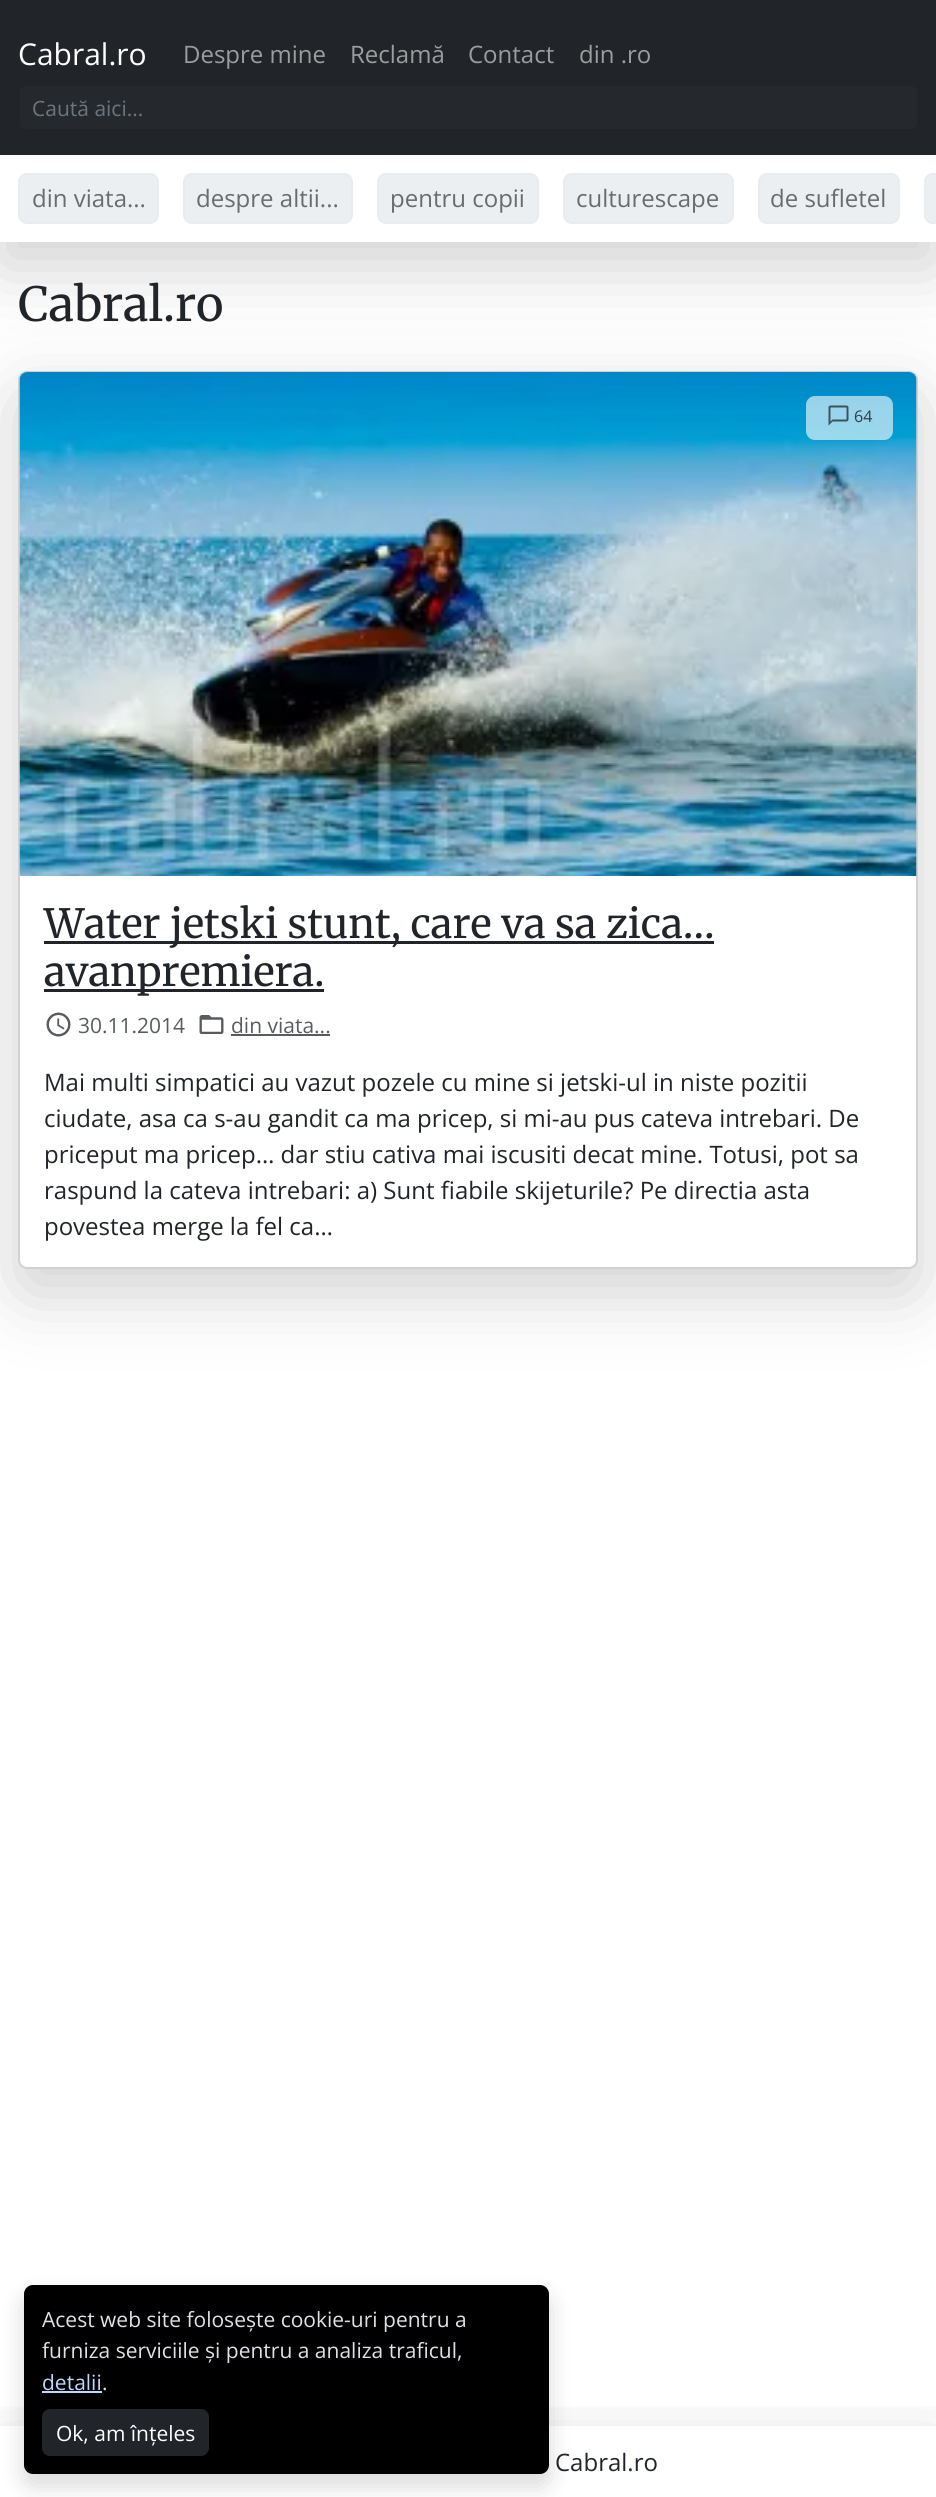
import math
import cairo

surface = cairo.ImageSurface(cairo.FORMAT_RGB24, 936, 2497)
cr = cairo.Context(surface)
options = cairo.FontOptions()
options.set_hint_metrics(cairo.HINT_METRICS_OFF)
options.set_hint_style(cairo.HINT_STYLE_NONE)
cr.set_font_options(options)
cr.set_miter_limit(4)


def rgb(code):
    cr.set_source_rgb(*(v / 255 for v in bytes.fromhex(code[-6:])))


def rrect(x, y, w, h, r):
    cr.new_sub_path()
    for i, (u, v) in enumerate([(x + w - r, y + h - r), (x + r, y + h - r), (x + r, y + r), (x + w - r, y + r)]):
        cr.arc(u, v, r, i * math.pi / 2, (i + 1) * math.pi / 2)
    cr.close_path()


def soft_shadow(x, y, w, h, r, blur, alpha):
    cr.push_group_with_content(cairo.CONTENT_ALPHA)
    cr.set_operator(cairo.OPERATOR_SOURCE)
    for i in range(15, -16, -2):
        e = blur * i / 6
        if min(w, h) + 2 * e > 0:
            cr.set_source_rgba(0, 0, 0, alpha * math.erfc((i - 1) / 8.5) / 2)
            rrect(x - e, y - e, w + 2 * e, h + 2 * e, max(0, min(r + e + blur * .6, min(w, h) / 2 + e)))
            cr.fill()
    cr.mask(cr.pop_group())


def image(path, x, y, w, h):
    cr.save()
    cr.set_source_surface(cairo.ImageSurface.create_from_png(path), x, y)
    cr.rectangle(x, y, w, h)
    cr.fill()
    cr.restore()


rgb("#ffffff")
cr.paint()
cr.save()
cr.set_fill_rule(cairo.FILL_RULE_EVEN_ODD)
cr.new_path()
cr.move_to(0, 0)
cr.line_to(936, 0)
cr.line_to(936, 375)
cr.line_to(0, 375)
cr.close_path()
cr.move_to(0, 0)
cr.line_to(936, 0)
cr.line_to(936, 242)
cr.line_to(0, 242)
cr.close_path()
cr.clip()
rgb("#000000")
soft_shadow(0, 24, 936, 242, 0, 36, 0.18)
cr.restore()
rgb("#212529")
cr.rectangle(0, 0, 936, 155)
cr.fill()
rgb("#25292d")
rrect(20, 86, 897, 43, 6)
cr.fill()
rgb("#eceff2")
rrect(19, 174, 139, 49, 8)
cr.fill_preserve()
rgb("#e9ecef")
cr.stroke()
rgb("#eceff2")
rrect(184, 174, 168, 49, 8)
cr.fill_preserve()
rgb("#e9ecef")
cr.stroke()
rgb("#eceff2")
rrect(378, 174, 160, 49, 8)
cr.fill_preserve()
rgb("#e9ecef")
cr.stroke()
rgb("#eceff2")
rrect(564, 174, 169, 49, 8)
cr.fill_preserve()
rgb("#e9ecef")
cr.stroke()
rgb("#eceff2")
rrect(759, 174, 140, 49, 8)
cr.fill_preserve()
rgb("#e9ecef")
cr.stroke()
rgb("#eceff2")
cr.new_path()
cr.move_to(933, 173)
cr.line_to(936, 173)
cr.line_to(936, 224)
cr.line_to(933, 224)
cr.curve_to(928, 224, 924, 220, 924, 215)
cr.line_to(924, 182)
cr.curve_to(924, 177, 928, 173, 933, 173)
cr.close_path()
cr.fill()
rrect(925, 174, 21, 49, 8)
rgb("#e9ecef")
cr.stroke()
rgb("#000000")
soft_shadow(18, 395, 900, 898, 9, 36, 0.18)
rgb("#ffffff")
rrect(18, 371, 900, 898, 9)
cr.fill()
rrect(19, 372, 898, 896, 8)
cr.set_source_rgba(0, 0, 0, 0.18)
cr.stroke()
image("img/1.png", 19, 372, 898, 504)
cr.set_source_rgba(1, 1, 1, 0.6)
rrect(806, 396, 87, 44, 9)
cr.fill()
image("img/2.png", 828, 405, 21, 21)
rgb("#212529")
cr.rectangle(44, 941, 670, 3)
cr.fill()
cr.rectangle(44, 989, 280, 3)
cr.fill()
image("img/3.png", 46, 1012, 25, 25)
image("img/4.png", 199, 1015, 25, 19)
rgb("#595c5f")
cr.rectangle(231, 1034, 99, 2)
cr.fill()
rgb("#000000")
soft_shadow(24, 2297, 525, 189, 9, 12, 0.15)
cr.save()
cr.rectangle(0, 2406, 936, 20)
cr.clip()
soft_shadow(0, 2450, 936, 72, 0, 36, 0.18)
cr.restore()
rgb("#000000")
rrect(24, 2285, 525, 189, 9)
cr.fill()
rgb("#bed8fe")
cr.rectangle(42, 2391, 60, 2)
cr.fill()
rgb("#212529")
rrect(43, 2410, 165, 45, 7)
cr.fill_preserve()
cr.stroke()
cr.select_font_face("Open Sans")
cr.set_font_size(30)
rgb("#ffffff")
cr.move_to(18, 65)
cr.show_text("Cabral.ro")
cr.set_font_size(24)
rgb("#9b9d9f")
for x, y, s in [
    (183, 63, "Despre mine"),
    (350, 63, "Reclamă"),
    (468, 63, "Contact"),
    (579, 63, "din .ro"),
]:
    cr.move_to(x, y)
    cr.show_text(s)
cr.set_font_size(21)
rgb("#6c757d")
cr.move_to(32, 116)
cr.show_text("Caută aici...")
cr.set_font_size(24)
rgb("#686c6f")
for x, y, s in [
    (32, 207, "din viata..."),
    (196, 207, "despre altii..."),
    (390, 207, "pentru copii"),
    (576, 207, "culturescape"),
    (770, 207, "de sufletel"),
]:
    cr.move_to(x, y)
    cr.show_text(s)
cr.select_font_face("Merriweather")
cr.set_font_size(47)
rgb("#212529")
cr.move_to(18, 321)
cr.show_text("Cabral.ro")
cr.select_font_face("Open Sans")
cr.set_font_size(16)
rgb("#343a40")
cr.move_to(854, 422)
cr.show_text("64")
cr.select_font_face("Merriweather")
cr.set_font_size(40.25)
rgb("#212529")
cr.move_to(44, 938)
cr.show_text("Water jetski stunt, care va sa zica…")
cr.move_to(44, 986)
cr.show_text("avanpremiera.")
cr.select_font_face("Open Sans")
cr.set_font_size(21)
rgb("#595c5f")
cr.move_to(78, 1033)
cr.show_text("30.11.2014")
cr.move_to(231, 1033)
cr.show_text("din viata...")
cr.set_font_size(24)
rgb("#212529")
for x, y, s in [
    (44, 1091, "Mai multi simpatici au vazut pozele cu mine si jetski-ul in niste pozitii"),
    (44, 1127, "ciudate, asa ca s-au gandit ca ma pricep, si mi-au pus cateva intrebari. De"),
    (44, 1163, "priceput ma pricep… dar stiu cativa mai iscusiti decat mine. Totusi, pot sa"),
    (44, 1199, "raspund la cateva intrebari: a) Sunt fiabile skijeturile? Pe directia asta"),
    (44, 1235, "povestea merge la fel ca…"),
]:
    cr.move_to(x, y)
    cr.show_text(s)
cr.set_font_size(21)
rgb("#dee2e6")
cr.move_to(42, 2327)
cr.show_text("Acest web site folosește cookie-uri pentru a")
cr.move_to(42, 2358)
cr.show_text("furniza serviciile și pentru a analiza traficul,")
rgb("#bed8fe")
cr.move_to(42, 2390)
cr.show_text("detalii")
rgb("#dee2e6")
cr.move_to(102, 2390)
cr.show_text(".")
rgb("#ffffff")
cr.move_to(56, 2441)
cr.show_text("Ok, am înțeles")
cr.set_font_size(24)
rgb("#212529")
cr.move_to(555, 2471)
cr.show_text("Cabral.ro")
surface.write_to_png("page.png")
